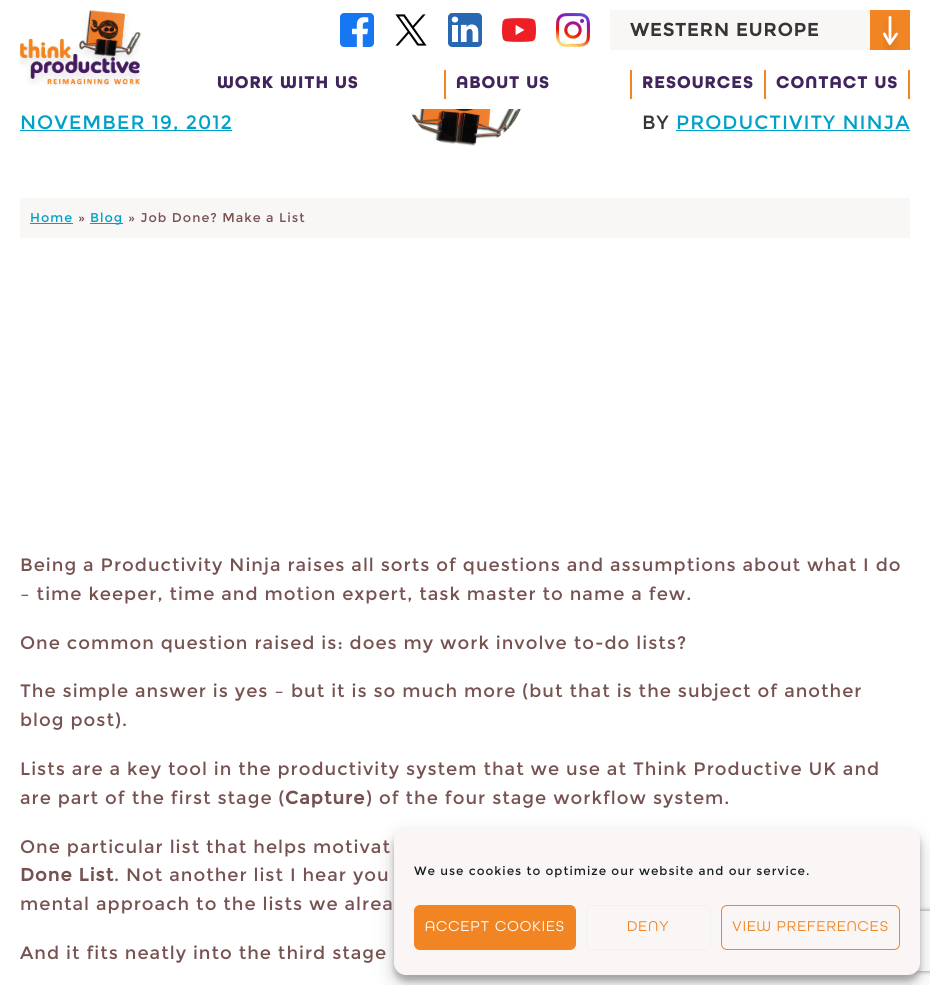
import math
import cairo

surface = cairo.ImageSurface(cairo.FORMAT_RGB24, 930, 985)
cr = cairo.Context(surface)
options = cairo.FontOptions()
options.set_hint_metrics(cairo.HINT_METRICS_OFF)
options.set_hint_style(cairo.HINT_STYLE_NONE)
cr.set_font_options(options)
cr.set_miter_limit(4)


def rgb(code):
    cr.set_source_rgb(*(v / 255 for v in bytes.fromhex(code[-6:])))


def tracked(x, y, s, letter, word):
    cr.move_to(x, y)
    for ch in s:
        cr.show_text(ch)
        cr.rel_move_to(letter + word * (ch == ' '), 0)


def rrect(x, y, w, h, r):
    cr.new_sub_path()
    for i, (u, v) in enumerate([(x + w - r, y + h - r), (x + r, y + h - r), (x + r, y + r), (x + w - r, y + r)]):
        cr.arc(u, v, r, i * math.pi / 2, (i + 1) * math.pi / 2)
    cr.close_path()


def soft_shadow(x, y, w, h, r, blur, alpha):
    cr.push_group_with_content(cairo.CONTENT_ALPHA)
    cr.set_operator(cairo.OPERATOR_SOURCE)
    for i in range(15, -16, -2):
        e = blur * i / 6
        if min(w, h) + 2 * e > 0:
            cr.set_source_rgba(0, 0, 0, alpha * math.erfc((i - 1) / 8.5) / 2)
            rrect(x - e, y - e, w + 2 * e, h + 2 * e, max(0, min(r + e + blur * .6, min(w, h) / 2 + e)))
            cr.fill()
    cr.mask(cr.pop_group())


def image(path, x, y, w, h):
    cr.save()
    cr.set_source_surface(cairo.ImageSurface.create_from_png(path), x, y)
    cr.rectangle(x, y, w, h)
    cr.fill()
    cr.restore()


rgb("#ffffff")
cr.paint()
image("img/1.png", 19, 10, 122, 76)
image("img/2.png", 340, 13, 34, 34)
image("img/3.png", 395, 14, 32, 32)
image("img/4.png", 448, 13, 34, 34)
image("img/5.png", 502, 18, 34, 24)
image("img/6.png", 556, 13, 34, 34)
rgb("#f9f6f6")
cr.rectangle(610, 10, 260, 40)
cr.fill()
rgb("#f18423")
cr.rectangle(870, 10, 40, 40)
cr.fill()
image("img/7.png", 883, 16, 15, 35)
for x, y, w, h, color in [
    (444, 70, 2, 29, "#f18423"),
    (630, 70, 2, 29, "#f18423"),
    (764, 70, 2, 29, "#f18423"),
    (908, 70, 2, 29, "#f18423"),
]:
    rgb(color)
    cr.rectangle(x, y, w, h)
    cr.fill()
image("img/8.png", 411, 109, 110, 37)
for x, y, w, h, color in [
    (20, 130, 212, 1, "#00a1c8"),
    (676, 130, 234, 1, "#00a1c8"),
    (20, 198, 890, 40, "#f9f6f6"),
    (30, 223, 43, 1, "#00a1c8"),
    (90, 223, 33, 1, "#00a1c8"),
]:
    rgb(color)
    cr.rectangle(x, y, w, h)
    cr.fill()
rgb("#000000")
soft_shadow(394, 833, 526, 148, 12, 3, 0.23)
soft_shadow(394, 837, 526, 148, 12, 10, 0.19)
cr.save()
cr.set_fill_rule(cairo.FILL_RULE_EVEN_ODD)
cr.new_path()
cr.move_to(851, 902)
cr.line_to(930, 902)
cr.line_to(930, 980)
cr.line_to(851, 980)
cr.close_path()
cr.move_to(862, 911)
cr.line_to(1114, 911)
cr.curve_to(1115, 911, 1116, 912, 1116, 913)
cr.line_to(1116, 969)
cr.curve_to(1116, 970, 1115, 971, 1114, 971)
cr.line_to(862, 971)
cr.curve_to(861, 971, 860, 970, 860, 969)
cr.line_to(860, 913)
cr.curve_to(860, 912, 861, 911, 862, 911)
cr.close_path()
cr.clip()
rgb("#808080")
soft_shadow(860, 911, 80, 60, 2, 2.5, 1)
cr.restore()
rgb("#faf6f5")
rrect(394, 827, 526, 148, 12)
cr.fill()
rgb("#f18523")
rrect(414.5, 905.5, 161, 44, 5.5)
cr.fill_preserve()
cr.set_line_width(1)
cr.stroke()
rrect(586.5, 905.5, 124, 44, 5.5)
rgb("#f1f1f1")
cr.stroke()
rrect(721.5, 905.5, 178, 44, 5.5)
rgb("#f18523")
cr.stroke()
cr.select_font_face("Montserrat", cairo.FONT_SLANT_NORMAL, cairo.FONT_WEIGHT_BOLD)
cr.set_font_size(18)
rgb("#373435")
tracked(630, 36, "WESTERN EUROPE", 1, 0)
cr.select_font_face("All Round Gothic", cairo.FONT_SLANT_NORMAL, cairo.FONT_WEIGHT_BOLD)
rgb("#42245d")
for x, y, s in [
    (217, 88, "WORK WITH US"),
    (456, 88, "ABOUT US"),
    (642, 88, "RESOURCES"),
    (776, 88, "CONTACT US"),
]:
    tracked(x, y, s, 1, 0)
cr.select_font_face("Montserrat")
cr.set_font_size(19.25)
rgb("#00a1c8")
tracked(20, 129, "NOVEMBER 19, 2012", 1, 0)
rgb("#373435")
tracked(642, 129, "BY", 1, 0)
rgb("#00a1c8")
tracked(676, 129, "PRODUCTIVITY NINJA", 1, 0)
cr.set_font_size(12.75)
tracked(30, 222, "Home", 1, 0)
rgb("#765251")
tracked(78, 222, "»", 1, 0)
rgb("#00a1c8")
tracked(90, 222, "Blog", 1, 0)
rgb("#765251")
tracked(128, 222, "» Job Done? Make a List", 1, 0)
cr.set_font_size(18)
for x, y, s in [
    (20, 571, "Being a Productivity Ninja raises all sorts of questions and assumptions about what I do"),
    (20, 600, "– time keeper, time and motion expert, task master to name a few."),
    (20, 649, "One common question raised is: does my work involve to-do lists?"),
    (20, 697, "The simple answer is yes – but it is so much more (but that is the subject of another"),
    (20, 726, "blog post)."),
    (20, 775, "Lists are a key tool in the productivity system that we use at Think Productive UK and"),
    (20, 804, "are part of the first stage ("),
]:
    tracked(x, y, s, 1, 0)
cr.select_font_face("Montserrat", cairo.FONT_SLANT_NORMAL, cairo.FONT_WEIGHT_BOLD)
tracked(285, 804, "Capture", 1, 0)
cr.select_font_face("Montserrat")
tracked(366, 804, ") of the four stage workflow system.", 1, 0)
tracked(20, 853, "One particular list that helps motivat", 1, 0)
cr.select_font_face("Montserrat", cairo.FONT_SLANT_NORMAL, cairo.FONT_WEIGHT_BOLD)
tracked(20, 881, "Done List", 1, 0)
cr.select_font_face("Montserrat")
for x, y, s in [
    (114, 881, ". Not another list I hear you"),
    (20, 910, "mental approach to the lists we alrea"),
    (20, 959, "And it fits neatly into the third stage"),
]:
    tracked(x, y, s, 1, 0)
cr.set_font_size(12)
rgb("#191e23")
tracked(414, 875, "We use cookies to optimize our website and our service.", 1, 0)
cr.select_font_face("All Round Gothic")
cr.set_font_size(15)
rgb("#ffffff")
tracked(425, 931, "ACCEPT COOKIES", 1, 0)
rgb("#f18523")
tracked(627, 931, "DENY", 1, 0)
tracked(732, 931, "VIEW PREFERENCES", 1, 0)
surface.write_to_png("page.png")
